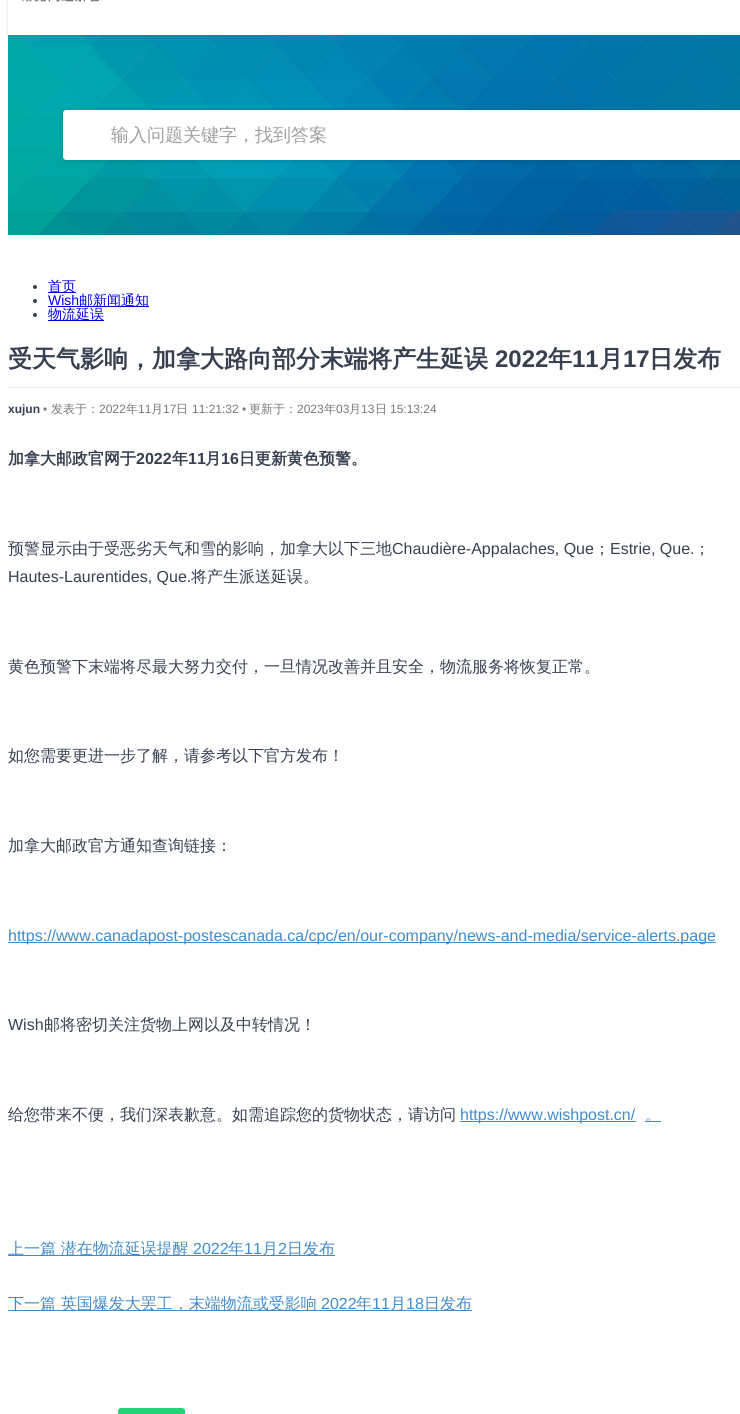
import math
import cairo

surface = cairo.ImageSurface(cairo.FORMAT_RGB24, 740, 1414)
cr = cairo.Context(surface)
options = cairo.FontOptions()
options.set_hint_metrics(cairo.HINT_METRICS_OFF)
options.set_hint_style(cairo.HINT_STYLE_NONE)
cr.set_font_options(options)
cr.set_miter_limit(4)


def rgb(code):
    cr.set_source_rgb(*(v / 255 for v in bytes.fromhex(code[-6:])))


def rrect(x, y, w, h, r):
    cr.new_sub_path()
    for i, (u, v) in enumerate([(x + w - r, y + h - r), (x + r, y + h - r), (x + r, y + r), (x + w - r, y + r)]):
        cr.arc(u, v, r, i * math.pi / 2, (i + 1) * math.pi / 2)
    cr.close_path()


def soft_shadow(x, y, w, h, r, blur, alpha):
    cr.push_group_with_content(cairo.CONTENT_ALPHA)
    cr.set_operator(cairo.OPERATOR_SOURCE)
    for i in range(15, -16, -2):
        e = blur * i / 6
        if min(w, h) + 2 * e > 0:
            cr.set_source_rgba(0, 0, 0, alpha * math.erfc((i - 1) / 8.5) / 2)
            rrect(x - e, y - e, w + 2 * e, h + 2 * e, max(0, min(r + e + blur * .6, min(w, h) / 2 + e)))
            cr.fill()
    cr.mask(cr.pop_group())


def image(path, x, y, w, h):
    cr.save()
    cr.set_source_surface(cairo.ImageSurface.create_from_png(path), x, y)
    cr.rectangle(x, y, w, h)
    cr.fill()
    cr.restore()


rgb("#ffffff")
cr.paint()
cr.save()
cr.rectangle(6, 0, 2, 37)
cr.clip()
rgb("#000000")
soft_shadow(8, -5, 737, 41, 0, 1.5, 0.15)
cr.restore()
image("img/1.png", 21, 0, 79, 3)
image("img/2.png", 8, 35, 732, 200)
rgb("#000000")
soft_shadow(63, 111, 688, 50, 3, 2.5, 0.15)
rgb("#ffffff")
cr.new_path()
cr.move_to(66, 110)
cr.line_to(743, 110)
cr.line_to(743, 160)
cr.line_to(66, 160)
cr.curve_to(64.5, 160, 63, 158.5, 63, 157)
cr.line_to(63, 113)
cr.curve_to(63, 111.5, 64.5, 110, 66, 110)
cr.close_path()
cr.fill()
rgb("#374051")
cr.arc(35, 287, 2, 0, 2 * math.pi)
cr.fill()
rgb("#0000ee")
cr.rectangle(48, 292, 28, 1)
cr.fill()
rgb("#374051")
cr.arc(35, 301, 2, 0, 2 * math.pi)
cr.fill()
rgb("#0000ee")
cr.rectangle(48, 306, 101, 1)
cr.fill()
rgb("#374051")
cr.arc(35, 315, 2, 0, 2 * math.pi)
cr.fill()
for x, y, w, h, color in [
    (48, 320, 56, 1, "#0000ee"),
    (8, 387, 732, 1, "#e2eaec"),
    (8, 942, 708, 1, "#428bca"),
    (460, 1121, 176, 1, "#428bca"),
    (645, 1121, 16, 1, "#428bca"),
    (8, 1255, 327, 1, "#428bca"),
    (8, 1310, 464, 1, "#428bca"),
]:
    rgb(color)
    cr.rectangle(x, y, w, h)
    cr.fill()
rgb("#21d376")
rrect(118, 1408, 67, 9, 3)
cr.fill()
cr.select_font_face("WenQuanYi Zen Hei Medium")
cr.set_font_size(18)
rgb("#9e9e9e")
cr.move_to(111, 141)
cr.show_text("输入问题关键字，找到答案")
cr.set_font_size(14)
rgb("#0000ee")
cr.move_to(48, 291)
cr.show_text("首页")
cr.select_font_face("Liberation Sans")
cr.move_to(48, 305)
cr.show_text("Wish")
cr.select_font_face("WenQuanYi Zen Hei Medium")
cr.move_to(79, 305)
cr.show_text("邮新闻通知")
cr.move_to(48, 319)
cr.show_text("物流延误")
cr.select_font_face("WenQuanYi Zen Hei", cairo.FONT_SLANT_NORMAL, cairo.FONT_WEIGHT_BOLD)
cr.set_font_size(24)
rgb("#374051")
cr.move_to(8, 367)
cr.show_text("受天气影响，加拿大路向部分末端将产生延误")
cr.select_font_face("Liberation Sans", cairo.FONT_SLANT_NORMAL, cairo.FONT_WEIGHT_BOLD)
cr.move_to(495, 367)
cr.show_text("2022")
cr.select_font_face("WenQuanYi Zen Hei", cairo.FONT_SLANT_NORMAL, cairo.FONT_WEIGHT_BOLD)
cr.move_to(548, 367)
cr.show_text("年")
cr.select_font_face("Liberation Sans", cairo.FONT_SLANT_NORMAL, cairo.FONT_WEIGHT_BOLD)
cr.move_to(572, 367)
cr.show_text("11")
cr.select_font_face("WenQuanYi Zen Hei", cairo.FONT_SLANT_NORMAL, cairo.FONT_WEIGHT_BOLD)
cr.move_to(599, 367)
cr.show_text("月")
cr.select_font_face("Liberation Sans", cairo.FONT_SLANT_NORMAL, cairo.FONT_WEIGHT_BOLD)
cr.move_to(623, 367)
cr.show_text("17")
cr.select_font_face("WenQuanYi Zen Hei", cairo.FONT_SLANT_NORMAL, cairo.FONT_WEIGHT_BOLD)
cr.move_to(649, 367)
cr.show_text("日发布")
cr.select_font_face("Liberation Sans", cairo.FONT_SLANT_NORMAL, cairo.FONT_WEIGHT_BOLD)
cr.set_font_size(12)
cr.move_to(8, 413)
cr.show_text("xujun")
cr.select_font_face("Liberation Sans")
rgb("#777777")
cr.move_to(43, 413)
cr.show_text("•")
cr.select_font_face("WenQuanYi Zen Hei Medium")
cr.move_to(51, 413)
cr.show_text("发表于：")
cr.select_font_face("Liberation Sans")
cr.move_to(99, 413)
cr.show_text("2022")
cr.select_font_face("WenQuanYi Zen Hei Medium")
cr.move_to(126, 413)
cr.show_text("年")
cr.select_font_face("Liberation Sans")
cr.move_to(138, 413)
cr.show_text("11")
cr.select_font_face("WenQuanYi Zen Hei Medium")
cr.move_to(151, 413)
cr.show_text("月")
cr.select_font_face("Liberation Sans")
cr.move_to(163, 413)
cr.show_text("17")
cr.select_font_face("WenQuanYi Zen Hei Medium")
cr.move_to(176, 413)
cr.show_text("日")
cr.select_font_face("Liberation Sans")
cr.move_to(192, 413)
cr.show_text("11:21:32 •")
cr.select_font_face("WenQuanYi Zen Hei Medium")
cr.move_to(249, 413)
cr.show_text("更新于：")
cr.select_font_face("Liberation Sans")
cr.move_to(297, 413)
cr.show_text("2023")
cr.select_font_face("WenQuanYi Zen Hei Medium")
cr.move_to(324, 413)
cr.show_text("年")
cr.select_font_face("Liberation Sans")
cr.move_to(336, 413)
cr.show_text("03")
cr.select_font_face("WenQuanYi Zen Hei Medium")
cr.move_to(349, 413)
cr.show_text("月")
cr.select_font_face("Liberation Sans")
cr.move_to(361, 413)
cr.show_text("13")
cr.select_font_face("WenQuanYi Zen Hei Medium")
cr.move_to(375, 413)
cr.show_text("日")
cr.select_font_face("Liberation Sans")
cr.move_to(390, 413)
cr.show_text("15:13:24")
cr.select_font_face("WenQuanYi Zen Hei", cairo.FONT_SLANT_NORMAL, cairo.FONT_WEIGHT_BOLD)
cr.set_font_size(16)
rgb("#374051")
cr.move_to(8, 464)
cr.show_text("加拿大邮政官网于")
cr.select_font_face("Liberation Sans", cairo.FONT_SLANT_NORMAL, cairo.FONT_WEIGHT_BOLD)
cr.move_to(136, 464)
cr.show_text("2022")
cr.select_font_face("WenQuanYi Zen Hei", cairo.FONT_SLANT_NORMAL, cairo.FONT_WEIGHT_BOLD)
cr.move_to(172, 464)
cr.show_text("年")
cr.select_font_face("Liberation Sans", cairo.FONT_SLANT_NORMAL, cairo.FONT_WEIGHT_BOLD)
cr.move_to(188, 464)
cr.show_text("11")
cr.select_font_face("WenQuanYi Zen Hei", cairo.FONT_SLANT_NORMAL, cairo.FONT_WEIGHT_BOLD)
cr.move_to(205, 464)
cr.show_text("月")
cr.select_font_face("Liberation Sans", cairo.FONT_SLANT_NORMAL, cairo.FONT_WEIGHT_BOLD)
cr.move_to(221, 464)
cr.show_text("16")
cr.select_font_face("WenQuanYi Zen Hei", cairo.FONT_SLANT_NORMAL, cairo.FONT_WEIGHT_BOLD)
cr.move_to(239, 464)
cr.show_text("日更新黄色预警。")
cr.select_font_face("WenQuanYi Zen Hei Medium")
cr.move_to(8, 554)
cr.show_text("预警显示由于受恶劣天气和雪的影响，加拿大以下三地")
cr.select_font_face("Liberation Sans")
cr.move_to(392, 554)
cr.show_text("Chaudière-Appalaches, Que")
cr.select_font_face("WenQuanYi Zen Hei Medium")
cr.move_to(594, 554)
cr.show_text("；")
cr.select_font_face("Liberation Sans")
cr.move_to(610, 554)
cr.show_text("Estrie, Que.")
cr.select_font_face("WenQuanYi Zen Hei Medium")
cr.move_to(694, 554)
cr.show_text("；")
cr.select_font_face("Liberation Sans")
cr.move_to(8, 582)
cr.show_text("Hautes-Laurentides, Que.")
cr.select_font_face("WenQuanYi Zen Hei Medium")
for x, y, s in [
    (191, 582, "将产生派送延误。"),
    (8, 672, "黄色预警下末端将尽最大努力交付，一旦情况改善并且安全，物流服务将恢复正常。"),
    (8, 761, "如您需要更进一步了解，请参考以下官方发布！"),
    (8, 851, "加拿大邮政官方通知查询链接："),
]:
    cr.move_to(x, y)
    cr.show_text(s)
cr.select_font_face("Liberation Sans")
rgb("#428bca")
cr.move_to(8, 941)
cr.show_text("https://www.canadapost-postescanada.ca/cpc/en/our-company/news-and-media/service-alerts.page")
rgb("#374051")
cr.move_to(8, 1030)
cr.show_text("Wish")
cr.select_font_face("WenQuanYi Zen Hei Medium")
cr.move_to(44, 1030)
cr.show_text("邮将密切关注货物上网以及中转情况！")
cr.move_to(8, 1120)
cr.show_text("给您带来不便，我们深表歉意。如需追踪您的货物状态，请访问")
cr.select_font_face("Liberation Sans")
rgb("#428bca")
cr.move_to(460, 1120)
cr.show_text("https://www.wishpost.cn/")
cr.select_font_face("WenQuanYi Zen Hei Medium")
cr.move_to(645, 1120)
cr.show_text("。")
cr.move_to(8, 1254)
cr.show_text("上一篇 潜在物流延误提醒")
cr.select_font_face("Liberation Sans")
cr.move_to(193, 1254)
cr.show_text("2022")
cr.select_font_face("WenQuanYi Zen Hei Medium")
cr.move_to(228, 1254)
cr.show_text("年")
cr.select_font_face("Liberation Sans")
cr.move_to(244, 1254)
cr.show_text("11")
cr.select_font_face("WenQuanYi Zen Hei Medium")
cr.move_to(262, 1254)
cr.show_text("月")
cr.select_font_face("Liberation Sans")
cr.move_to(278, 1254)
cr.show_text("2")
cr.select_font_face("WenQuanYi Zen Hei Medium")
cr.move_to(287, 1254)
cr.show_text("日发布")
cr.move_to(8, 1309)
cr.show_text("下一篇 英国爆发大罢工，末端物流或受影响")
cr.select_font_face("Liberation Sans")
cr.move_to(321, 1309)
cr.show_text("2022")
cr.select_font_face("WenQuanYi Zen Hei Medium")
cr.move_to(356, 1309)
cr.show_text("年")
cr.select_font_face("Liberation Sans")
cr.move_to(372, 1309)
cr.show_text("11")
cr.select_font_face("WenQuanYi Zen Hei Medium")
cr.move_to(390, 1309)
cr.show_text("月")
cr.select_font_face("Liberation Sans")
cr.move_to(406, 1309)
cr.show_text("18")
cr.select_font_face("WenQuanYi Zen Hei Medium")
cr.move_to(424, 1309)
cr.show_text("日发布")
surface.write_to_png("page.png")
